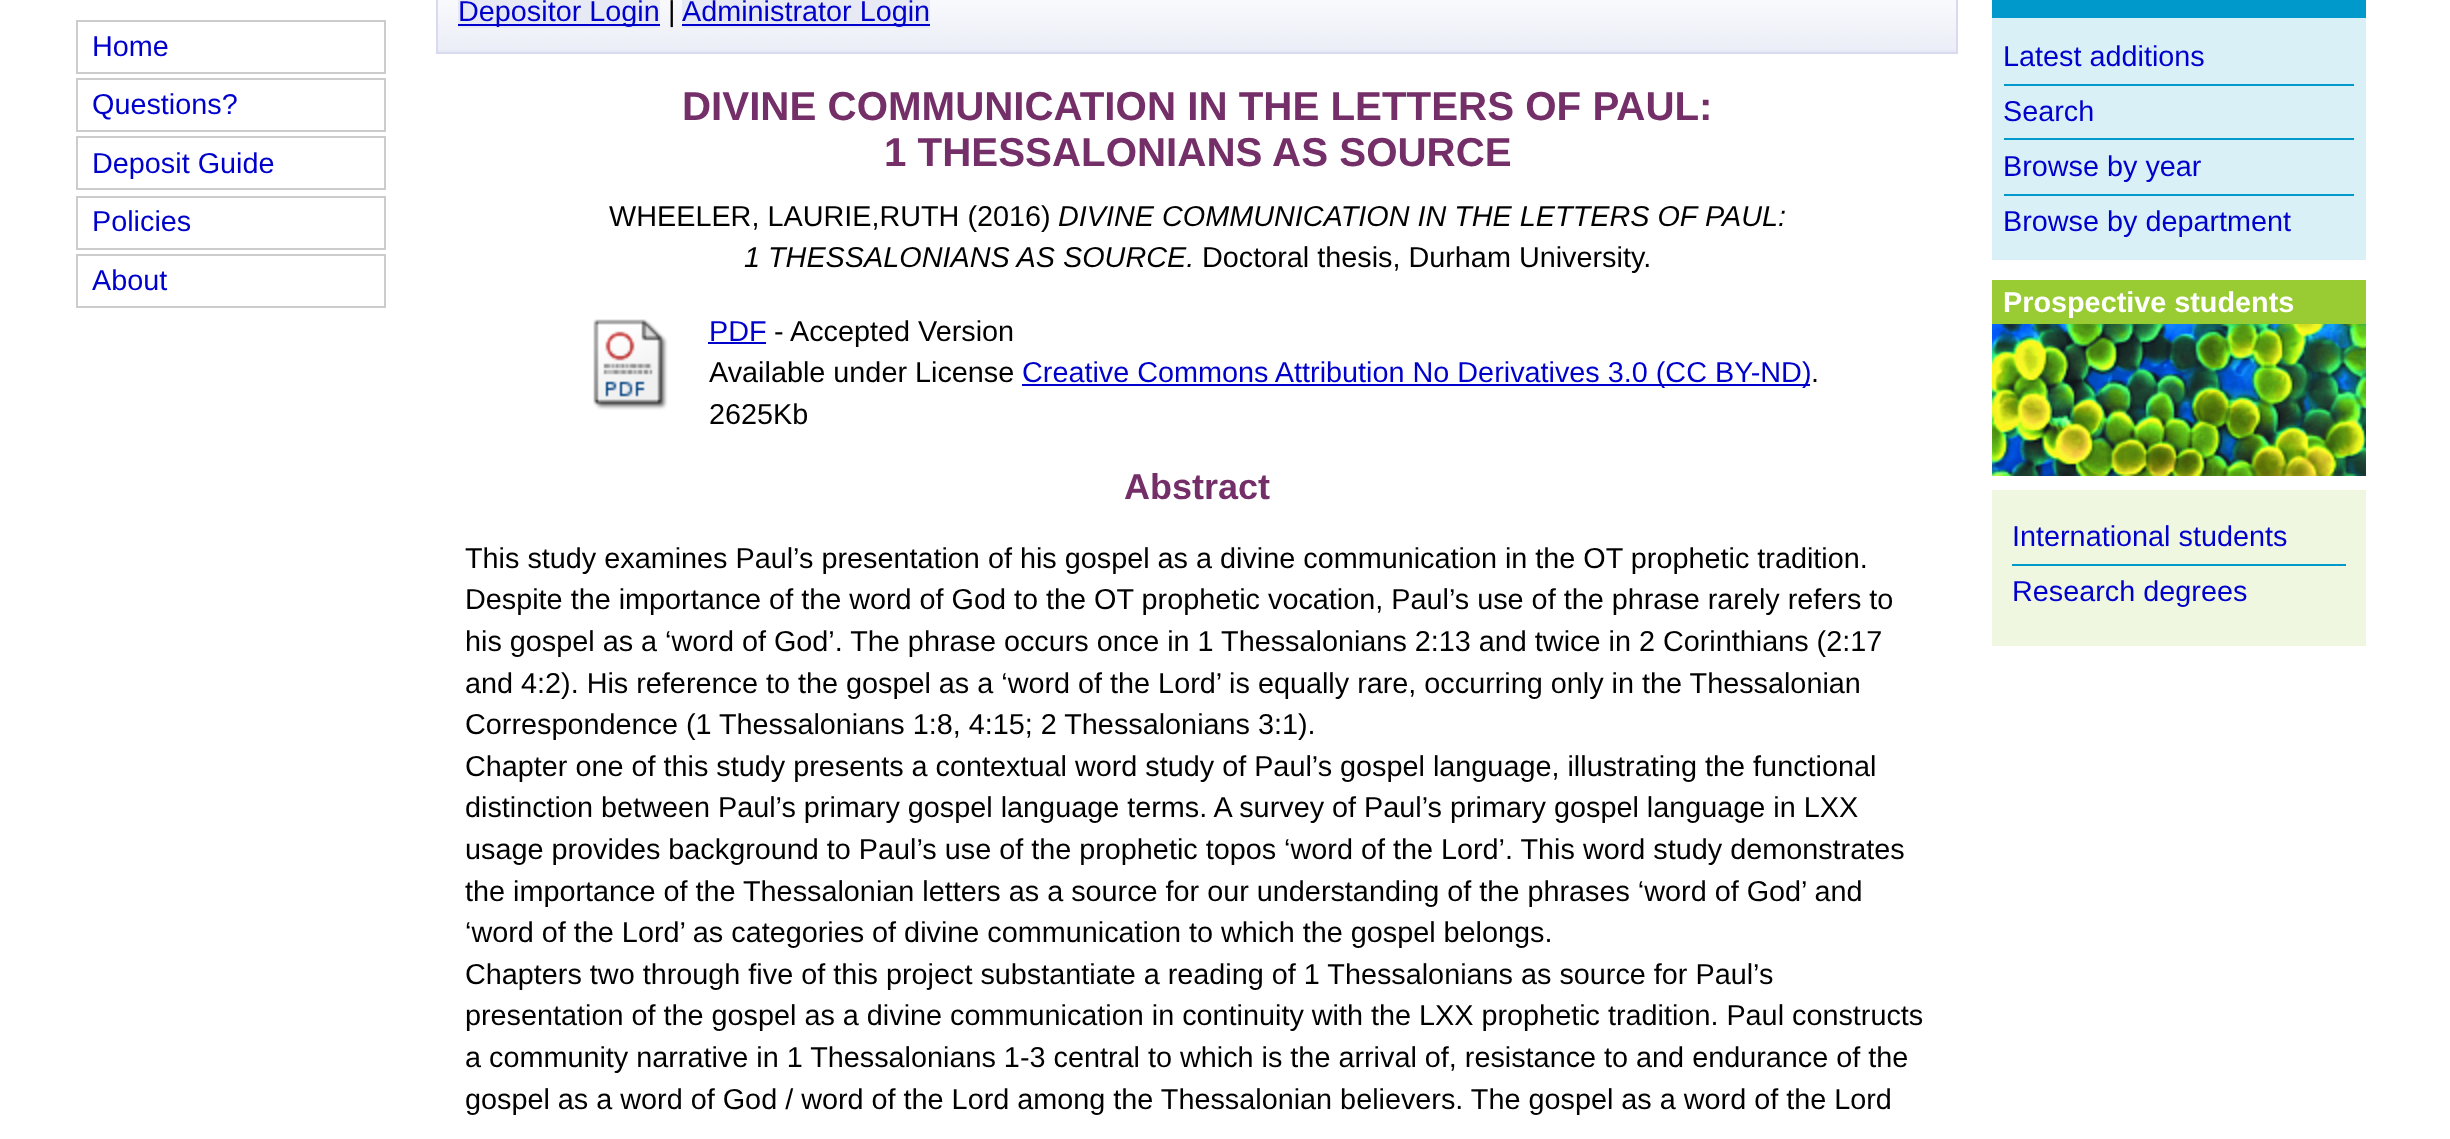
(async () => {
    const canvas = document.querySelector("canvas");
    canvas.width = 2450;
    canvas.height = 1139;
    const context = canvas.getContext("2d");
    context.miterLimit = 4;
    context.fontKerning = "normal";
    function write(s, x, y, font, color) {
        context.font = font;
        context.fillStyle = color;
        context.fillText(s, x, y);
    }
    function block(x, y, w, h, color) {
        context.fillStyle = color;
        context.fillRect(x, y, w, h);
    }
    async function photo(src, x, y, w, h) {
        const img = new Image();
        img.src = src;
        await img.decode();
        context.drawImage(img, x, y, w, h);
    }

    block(0, 0, 2450, 1139, "rgb(255, 255, 255)");
    context.strokeStyle = "rgb(204, 204, 204)";
    context.lineWidth = 2;
    context.strokeRect(77, 21, 308, 52);
    write("Home", 92, 56, "28.8px Liberation Sans", "rgb(0, 0, 204)");
    context.strokeRect(77, 79, 308, 52);
    write("Questions?", 92, 114, "28.8px Liberation Sans", "rgb(0, 0, 204)");
    context.strokeRect(77, 137, 308, 52);
    write("Deposit Guide", 92, 173, "28.8px Liberation Sans", "rgb(0, 0, 204)");
    context.strokeRect(77, 197, 308, 52);
    write("Policies", 92, 231, "28.8px Liberation Sans", "rgb(0, 0, 204)");
    context.strokeRect(77, 255, 308, 52);
    write("About", 92, 290, "28.8px Liberation Sans", "rgb(0, 0, 204)");
    block(438, 50, 1518, 2, "rgb(231, 233, 245)");
    await photo("media/1.png", 438, 0, 1518, 50);
    context.strokeStyle = "rgb(216, 219, 239)";
    context.strokeRect(437, -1, 1520, 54);
    block(458, 0, 202, 28, "rgb(231, 233, 245)");
    block(458, 24, 202, 2, "rgb(0, 0, 204)");
    write("Depositor Login", 458, 21, "28.8px Liberation Sans", "rgb(0, 0, 204)");
    write("|", 668, 21, "28.8px Liberation Sans", "rgb(0, 0, 0)");
    block(682, 0, 248, 28, "rgb(231, 233, 245)");
    block(682, 24, 248, 2, "rgb(0, 0, 204)");
    write("Administrator Login", 682, 21, "28.8px Liberation Sans", "rgb(0, 0, 204)");
    write("DIVINE COMMUNICATION IN THE LETTERS OF PAUL:", 682, 120, "bold 40.3px Liberation Sans", "rgb(116, 46, 104)");
    write("1 THESSALONIANS AS SOURCE", 884, 166, "bold 40.3px Liberation Sans", "rgb(116, 46, 104)");
    write("WHEELER, LAURIE,RUTH (2016)", 609, 226, "28.8px Liberation Sans", "rgb(0, 0, 0)");
    write("DIVINE COMMUNICATION IN THE LETTERS OF PAUL:", 1058, 226, "italic 28.8px Liberation Sans", "rgb(0, 0, 0)");
    write("1 THESSALONIANS AS SOURCE.", 744, 267, "italic 28.8px Liberation Sans", "rgb(0, 0, 0)");
    write("Doctoral thesis, Durham University.", 1202, 267, "28.8px Liberation Sans", "rgb(0, 0, 0)");
    await photo("media/2.png", 593, 319, 75, 91);
    write("PDF", 709, 341, "28.8px Liberation Sans", "rgb(0, 0, 204)");
    block(708, 342, 58, 2, "rgb(0, 0, 204)");
    write("- Accepted Version", 774, 341, "28.8px Liberation Sans", "rgb(0, 0, 0)");
    write("Available under License", 709, 382, "28.8px Liberation Sans", "rgb(0, 0, 0)");
    block(1022, 384, 788, 2, "rgb(0, 0, 204)");
    write("Creative Commons Attribution No Derivatives 3.0 (CC BY-ND)", 1022, 382, "28.8px Liberation Sans", "rgb(0, 0, 204)");
    write(".", 1811, 382, "28.8px Liberation Sans", "rgb(0, 0, 0)");
    write("2625Kb", 709, 424, "28.8px Liberation Sans", "rgb(0, 0, 0)");
    write("Abstract", 1124, 499, "bold 36px Liberation Sans", "rgb(116, 46, 104)");
    write("This study examines Paul’s presentation of his gospel as a divine communication in the OT prophetic tradition.", 465, 568, "28.8px Liberation Sans", "rgb(0, 0, 0)");
    write("Despite the importance of the word of God to the OT prophetic vocation, Paul’s use of the phrase rarely refers to", 465, 609, "28.8px Liberation Sans", "rgb(0, 0, 0)");
    write("his gospel as a ‘word of God’. The phrase occurs once in 1 Thessalonians 2:13 and twice in 2 Corinthians (2:17", 465, 651, "28.8px Liberation Sans", "rgb(0, 0, 0)");
    write("and 4:2). His reference to the gospel as a ‘word of the Lord’ is equally rare, occurring only in the Thessalonian", 465, 693, "28.8px Liberation Sans", "rgb(0, 0, 0)");
    write("Correspondence (1 Thessalonians 1:8, 4:15; 2 Thessalonians 3:1).", 465, 734, "28.8px Liberation Sans", "rgb(0, 0, 0)");
    write("Chapter one of this study presents a contextual word study of Paul’s gospel language, illustrating the functional", 465, 776, "28.8px Liberation Sans", "rgb(0, 0, 0)");
    write("distinction between Paul’s primary gospel language terms. A survey of Paul’s primary gospel language in LXX", 465, 817, "28.8px Liberation Sans", "rgb(0, 0, 0)");
    write("usage provides background to Paul’s use of the prophetic topos ‘word of the Lord’. This word study demonstrates", 465, 859, "28.8px Liberation Sans", "rgb(0, 0, 0)");
    write("the importance of the Thessalonian letters as a source for our understanding of the phrases ‘word of God’ and", 465, 901, "28.8px Liberation Sans", "rgb(0, 0, 0)");
    write("‘word of the Lord’ as categories of divine communication to which the gospel belongs.", 465, 942, "28.8px Liberation Sans", "rgb(0, 0, 0)");
    write("Chapters two through five of this project substantiate a reading of 1 Thessalonians as source for Paul’s", 465, 984, "28.8px Liberation Sans", "rgb(0, 0, 0)");
    write("presentation of the gospel as a divine communication in continuity with the LXX prophetic tradition. Paul constructs", 465, 1025, "28.8px Liberation Sans", "rgb(0, 0, 0)");
    write("a community narrative in 1 Thessalonians 1-3 central to which is the arrival of, resistance to and endurance of the", 465, 1067, "28.8px Liberation Sans", "rgb(0, 0, 0)");
    write("gospel as a word of God / word of the Lord among the Thessalonian believers. The gospel as a word of the Lord", 465, 1109, "28.8px Liberation Sans", "rgb(0, 0, 0)");
    block(1992, 18, 374, 242, "rgb(217, 240, 247)");
    block(1992, 0, 374, 18, "rgb(0, 153, 204)");
    write("Latest additions", 2003, 66, "28.8px Liberation Sans", "rgb(0, 0, 204)");
    block(2004, 84, 350, 2, "rgb(0, 153, 204)");
    write("Search", 2003, 121, "28.8px Liberation Sans", "rgb(0, 0, 204)");
    block(2004, 138, 350, 2, "rgb(0, 153, 204)");
    write("Browse by year", 2003, 176, "28.8px Liberation Sans", "rgb(0, 0, 204)");
    block(2004, 194, 350, 2, "rgb(0, 153, 204)");
    write("Browse by department", 2003, 231, "28.8px Liberation Sans", "rgb(0, 0, 204)");
    block(1992, 490, 374, 156, "rgb(240, 247, 225)");
    block(1992, 280, 374, 44, "rgb(153, 204, 51)");
    write("Prospective students", 2003, 312, "bold 28.8px Liberation Sans", "rgb(255, 255, 255)");
    await photo("media/3.png", 1992, 324, 125, 152);
    await photo("media/4.png", 2117, 324, 249, 152);
    write("International students", 2012, 546, "28.8px Liberation Sans", "rgb(0, 0, 204)");
    block(2012, 564, 334, 2, "rgb(0, 153, 204)");
    write("Research degrees", 2012, 601, "28.8px Liberation Sans", "rgb(0, 0, 204)");
})();
